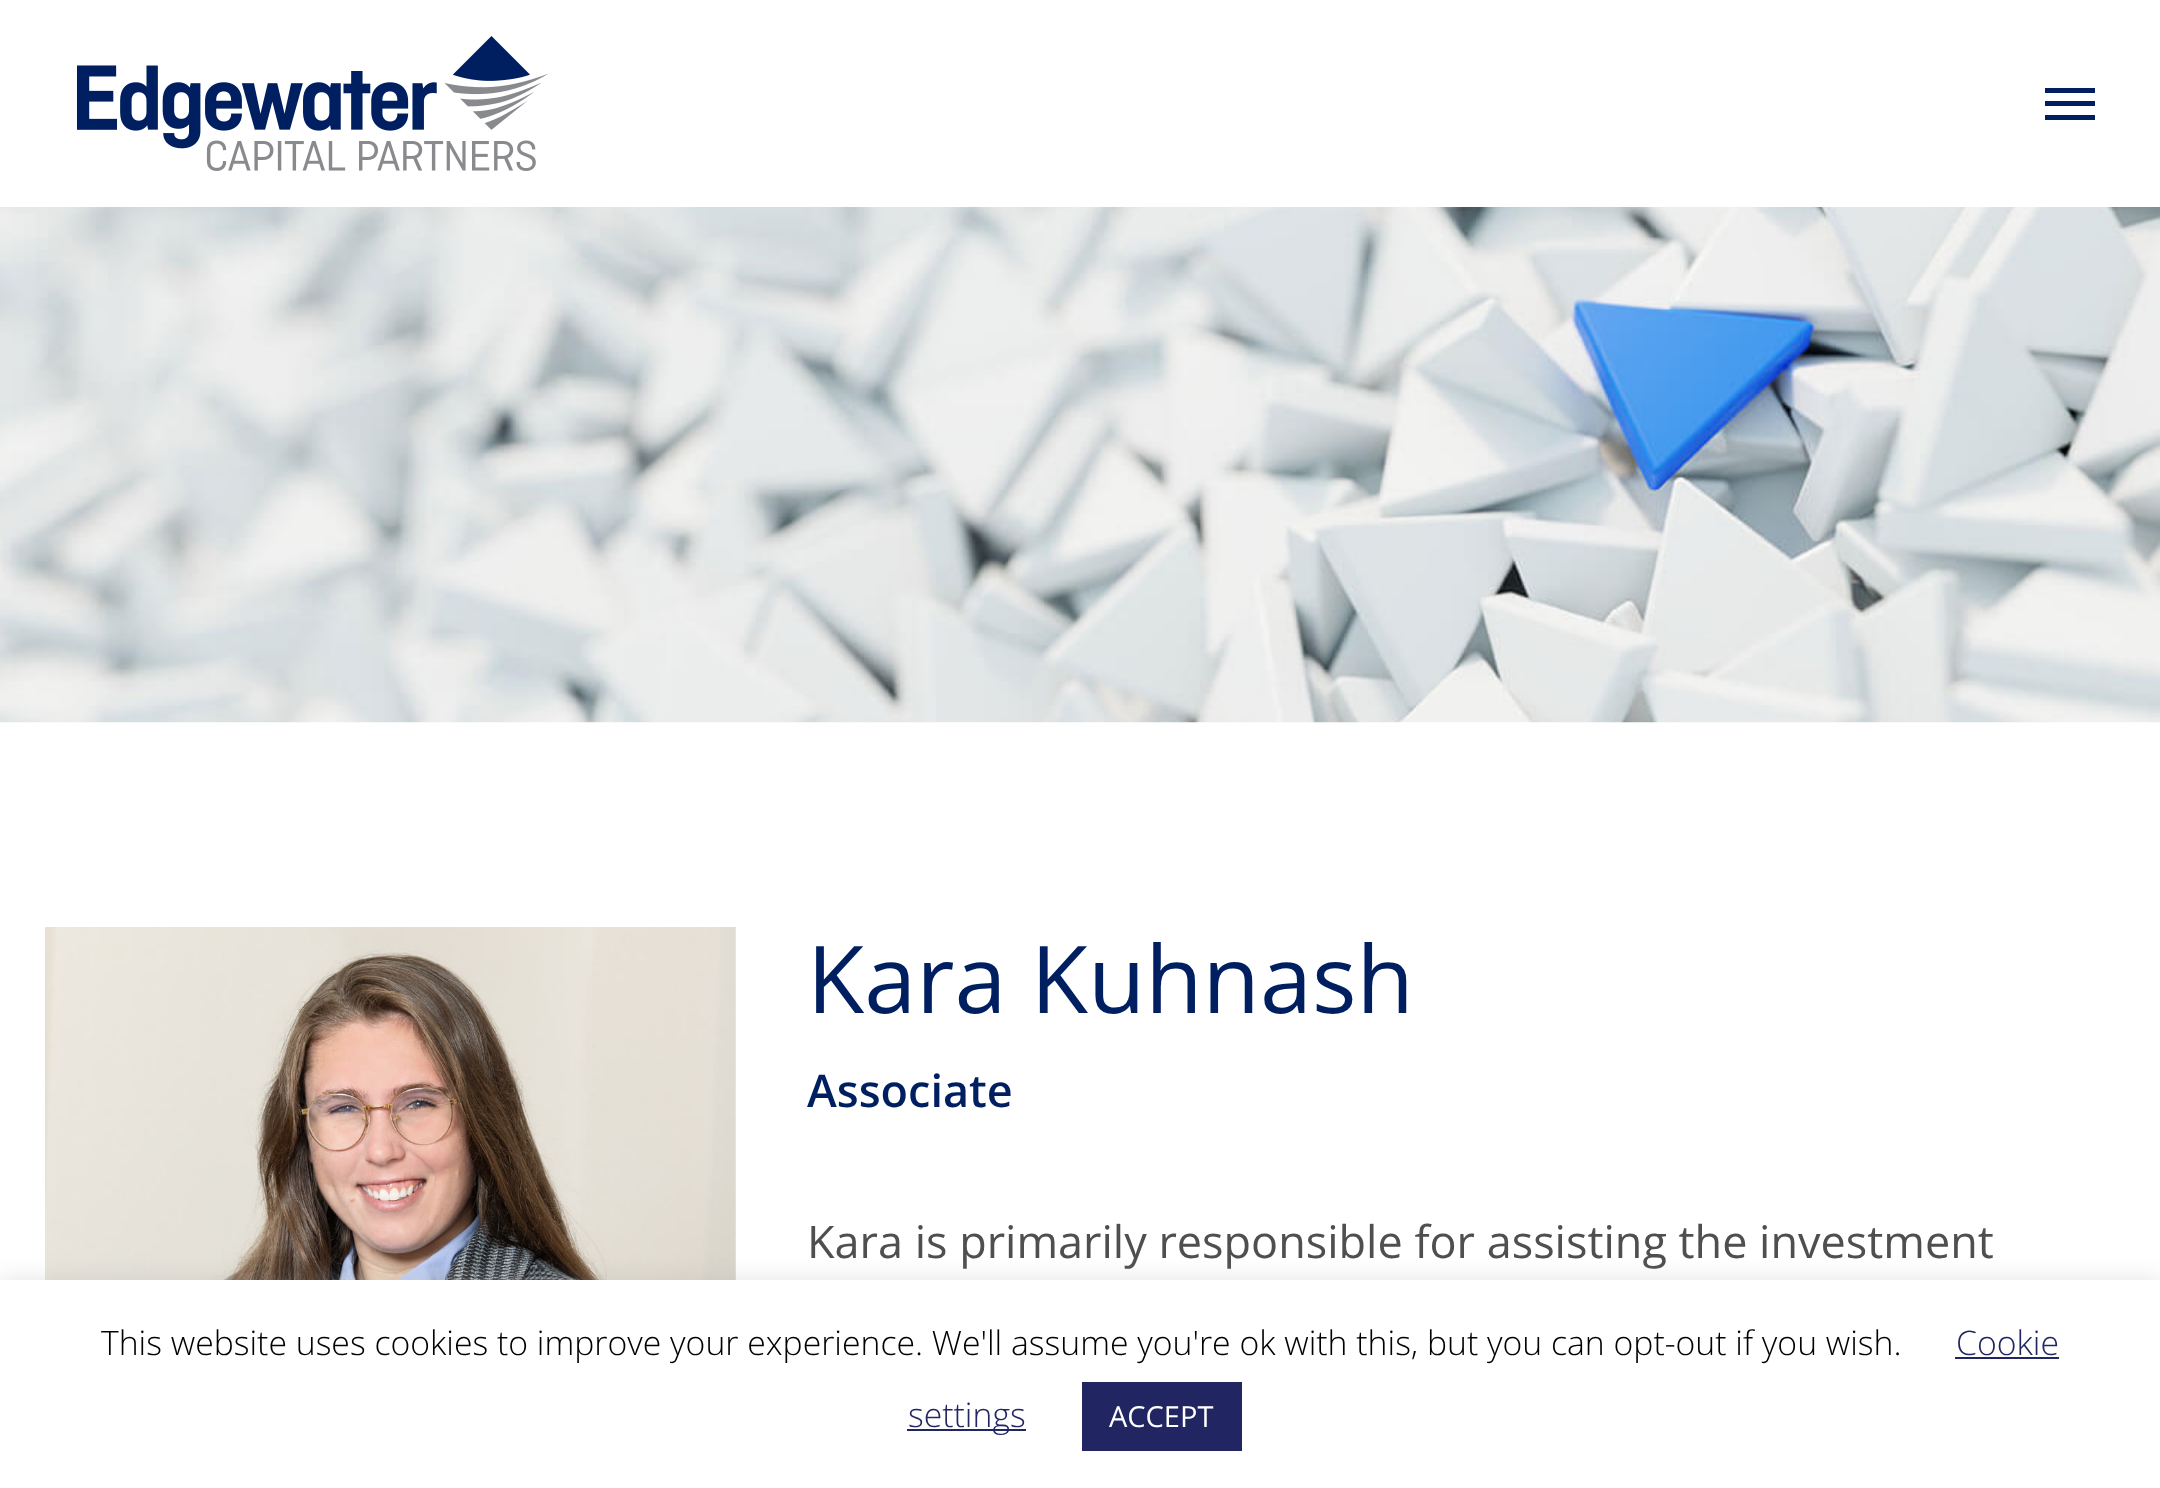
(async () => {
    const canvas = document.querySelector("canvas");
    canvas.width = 2160;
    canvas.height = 1488;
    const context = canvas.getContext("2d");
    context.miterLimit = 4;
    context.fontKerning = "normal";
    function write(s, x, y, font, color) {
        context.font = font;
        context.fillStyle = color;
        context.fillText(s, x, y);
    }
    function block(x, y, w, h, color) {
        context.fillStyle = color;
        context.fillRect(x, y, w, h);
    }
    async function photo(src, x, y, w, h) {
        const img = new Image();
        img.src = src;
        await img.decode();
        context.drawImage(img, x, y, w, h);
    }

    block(0, 0, 2160, 1488, "rgb(255, 255, 255)");
    await photo("media/1.png", 77, 36, 471, 135);
    block(2045, 88, 50, 5, "rgb(0, 31, 96)");
    block(2045, 101, 50, 5, "rgb(0, 31, 96)");
    block(2045, 115, 50, 5, "rgb(0, 31, 96)");
    await photo("media/2.png", 0, 207, 2160, 516);
    await photo("media/3.png", 45, 927, 691, 353);
    write("Kara Kuhnash", 807, 1013, "93.5px Open Sans", "rgb(0, 31, 96)");
    write("Associate", 807, 1107, "600 45px Open Sans", "rgb(0, 31, 96)");
    write("Kara is primarily responsible for assisting the investment", 807, 1258, "45px Open Sans", "rgb(79, 79, 79)");
    context.fillStyle = "rgba(172, 171, 171, 0.3)";
    context.filter = "blur(11px)";
    context.beginPath();
    context.rect(0, 1278, 2160, 209);
    context.fill();
    context.filter = "none";
    block(0, 1280, 2160, 208, "rgb(255, 255, 255)");
    write("This website uses cookies to improve your experience. We'll assume you're ok with this, but you can opt-out if you wish.", 101, 1355, "300 33.75px Open Sans", "rgb(0, 0, 0)");
    write("Cookie", 1956, 1355, "300 33.75px Open Sans", "rgb(33, 37, 98)");
    block(1955, 1357, 104, 2, "rgb(33, 37, 98)");
    block(907, 1429, 119, 2, "rgb(33, 37, 98)");
    write("settings", 908, 1427, "300 33.75px Open Sans", "rgb(33, 37, 98)");
    block(1082, 1382, 160, 69, "rgb(33, 37, 98)");
    write("ACCEPT", 1109, 1427, "29px Open Sans", "rgb(255, 255, 255)");
})();
